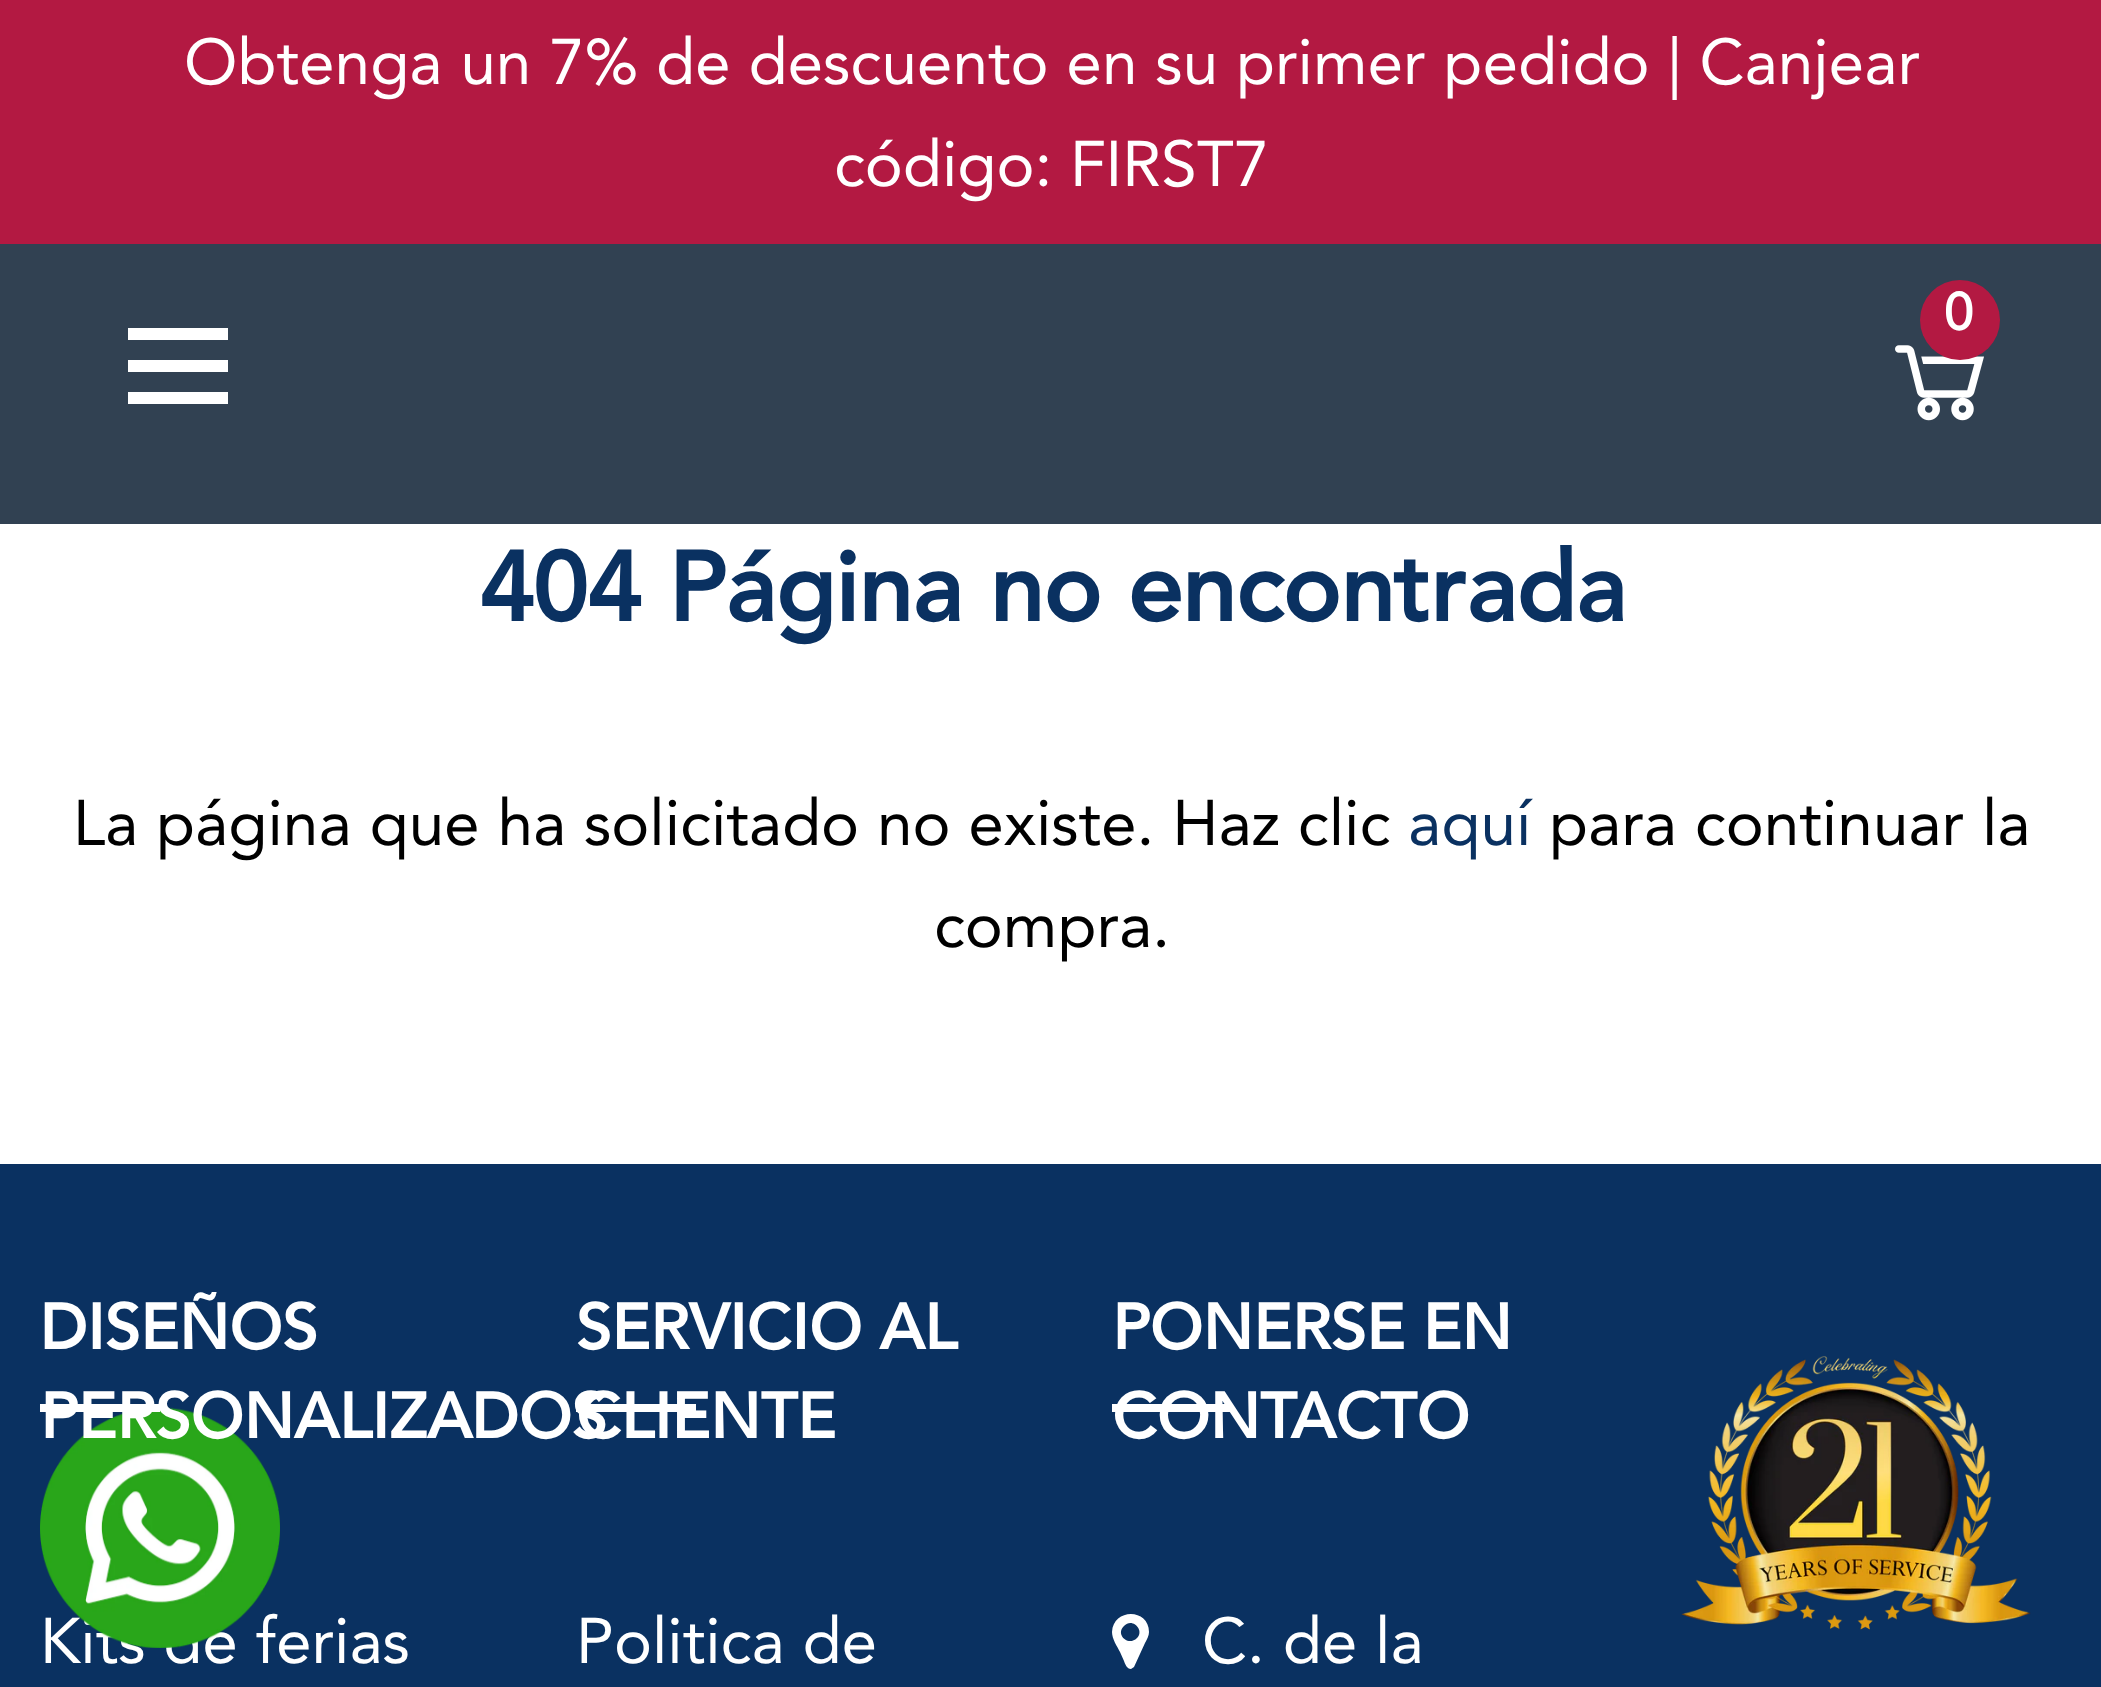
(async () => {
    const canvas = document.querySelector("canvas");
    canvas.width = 2101;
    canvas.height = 1687;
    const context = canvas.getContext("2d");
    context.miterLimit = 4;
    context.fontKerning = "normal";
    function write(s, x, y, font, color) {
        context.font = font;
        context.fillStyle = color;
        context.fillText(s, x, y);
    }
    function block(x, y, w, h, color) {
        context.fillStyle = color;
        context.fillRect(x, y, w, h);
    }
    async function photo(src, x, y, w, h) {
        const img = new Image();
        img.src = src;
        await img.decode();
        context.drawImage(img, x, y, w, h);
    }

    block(0, 0, 2101, 1687, "rgb(255, 255, 255)");
    block(0, 0, 2101, 244, "rgb(179, 25, 66)");
    write("Obtenga un 7% de descuento en su primer pedido | Canjear", 184, 84, "64px Avenir", "rgb(255, 255, 255)");
    write("código: FIRST7", 834, 186, "64px Avenir", "rgb(255, 255, 255)");
    block(0, 244, 2101, 280, "rgb(49, 65, 82)");
    await photo("media/1.png", 1895, 345, 89, 76);
    context.fillStyle = "rgb(179, 25, 66)";
    context.beginPath();
    context.arc(1960, 320, 40, 0, Math.PI * 2);
    context.fill();
    write("0", 1944, 330, "bold 52px Avenir", "rgb(255, 255, 255)");
    block(128, 360, 100, 12, "rgb(255, 255, 255)");
    block(128, 328, 100, 12, "rgb(255, 255, 255)");
    block(128, 392, 100, 12, "rgb(255, 255, 255)");
    write("404 Página no encontrada", 479, 621, "bold 97px 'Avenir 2'", "rgb(10, 49, 97)");
    write("La página que ha solicitado no existe. Haz clic", 73, 845, "64px Avenir", "rgb(0, 0, 0)");
    write("aquí", 1408, 845, "64px Avenir", "rgb(10, 49, 97)");
    write("para continuar la", 1549, 845, "64px Avenir", "rgb(0, 0, 0)");
    write("compra.", 934, 947, "64px Avenir", "rgb(0, 0, 0)");
    block(0, 1164, 2101, 523, "rgb(10, 49, 97)");
    write("DISEÑOS", 40, 1349, "bold 63.5px 'Avenir 2'", "rgb(255, 255, 255)");
    write("Kits de ferias", 40, 1663, "64px Avenir", "rgb(255, 255, 255)");
    await photo("media/3.png", 40, 1407, 240, 241);
    write("PERSONALIZADOS", 40, 1438, "bold 63.5px 'Avenir 2'", "rgb(255, 255, 255)");
    block(40, 1404, 120, 8, "rgb(255, 255, 255)");
    write("SERVICIO AL", 576, 1349, "bold 63.5px 'Avenir 2'", "rgb(255, 255, 255)");
    write("CLIENTE", 576, 1438, "bold 63.5px 'Avenir 2'", "rgb(255, 255, 255)");
    block(576, 1404, 120, 8, "rgb(255, 255, 255)");
    write("Politica de", 576, 1663, "64px Avenir", "rgb(255, 255, 255)");
    write("PONERSE EN", 1112, 1349, "bold 63.5px 'Avenir 2'", "rgb(255, 255, 255)");
    write("CONTACTO", 1112, 1438, "bold 63.5px 'Avenir 2'", "rgb(255, 255, 255)");
    block(1112, 1404, 120, 8, "rgb(255, 255, 255)");
    context.beginPath();
    context.moveTo(1137, 1638);
    context.bezierCurveTo(1145, 1630, 1132, 1617, 1124, 1626);
    context.bezierCurveTo(1115, 1634, 1128, 1647, 1137, 1638);
    context.closePath();
    context.moveTo(1149, 1632);
    context.bezierCurveTo(1149, 1636, 1147, 1639, 1145, 1643);
    context.lineTo(1134, 1667);
    context.lineTo(1131, 1669);
    context.bezierCurveTo(1127, 1669, 1125, 1664, 1124, 1661);
    context.lineTo(1120, 1652);
    context.bezierCurveTo(1117, 1646, 1112, 1639, 1112, 1632);
    context.bezierCurveTo(1113, 1608, 1149, 1608, 1149, 1632);
    context.closePath();
    context.fill();
    write("C. de la", 1202, 1663, "64px Avenir", "rgb(255, 255, 255)");
    await photo("media/2.png", 1681, 1356, 350, 274);
})();
